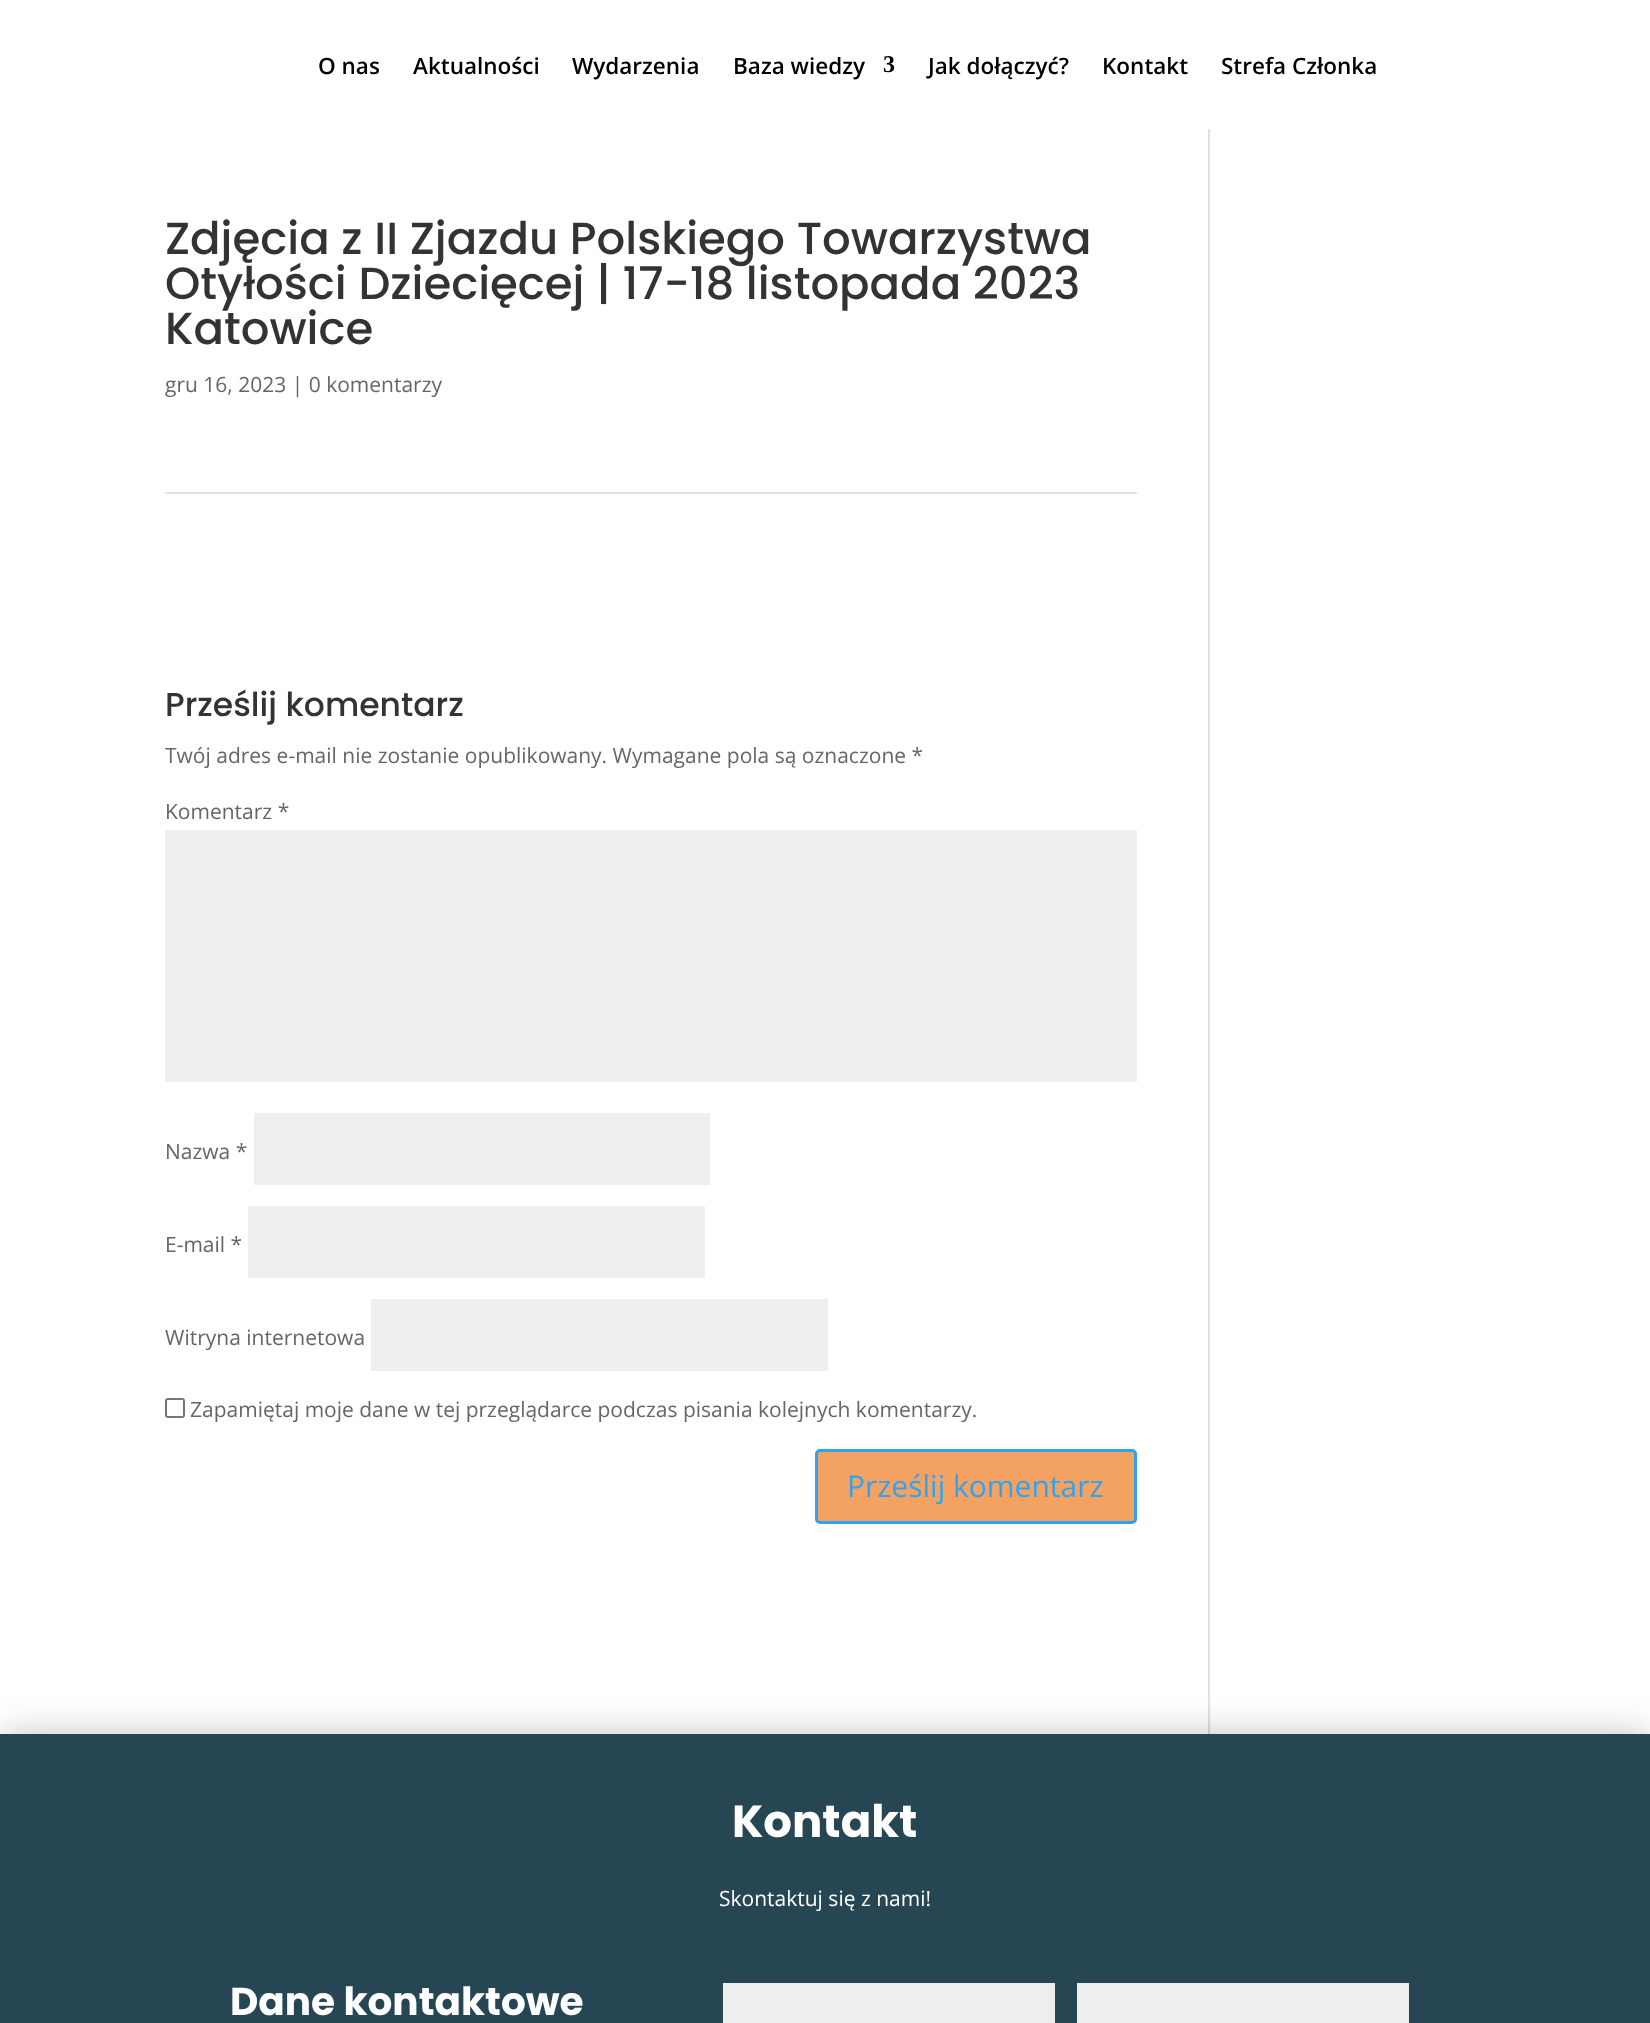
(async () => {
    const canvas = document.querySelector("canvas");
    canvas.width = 1650;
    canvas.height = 2023;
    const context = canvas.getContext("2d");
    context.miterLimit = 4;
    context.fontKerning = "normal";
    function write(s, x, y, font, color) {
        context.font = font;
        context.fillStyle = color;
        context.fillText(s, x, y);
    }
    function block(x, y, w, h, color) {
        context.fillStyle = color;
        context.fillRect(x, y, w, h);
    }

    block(0, 0, 1650, 2023, "rgb(255, 255, 255)");
    write("O nas", 318, 74, "600 22.5px Open Sans", "rgb(0, 0, 0)");
    write("Aktualności", 413, 74, "600 22.5px Open Sans", "rgb(0, 0, 0)");
    write("Wydarzenia", 572, 74, "600 22.5px Open Sans", "rgb(0, 0, 0)");
    write("Baza wiedzy", 733, 74, "600 22.5px Open Sans", "rgb(0, 0, 0)");
    write("3", 883, 72, "bold 24px Liberation Serif", "rgb(0, 0, 0)");
    write("Jak dołączyć?", 928, 74, "600 22.5px Open Sans", "rgb(0, 0, 0)");
    write("Kontakt", 1102, 74, "600 22.5px Open Sans", "rgb(0, 0, 0)");
    write("Strefa Członka", 1221, 74, "600 22.5px Open Sans", "rgb(0, 0, 0)");
    write("Zdjęcia z II Zjazdu Polskiego Towarzystwa", 165, 254, "500 45px Poppins", "rgb(51, 51, 51)");
    write("Otyłości Dziecięcej | 17-18 listopada 2023", 165, 299, "500 45px Poppins", "rgb(51, 51, 51)");
    write("Katowice", 165, 344, "500 45px Poppins", "rgb(51, 51, 51)");
    write("gru 16, 2023 | 0 komentarzy", 165, 392, "21px Open Sans", "rgb(102, 102, 102)");
    block(165, 492, 972, 2, "rgb(226, 226, 226)");
    write("Prześlij komentarz", 165, 716, "500 33px Poppins", "rgb(51, 51, 51)");
    write("Twój adres e-mail nie zostanie opublikowany. Wymagane pola są oznaczone *", 165, 763, "21px Open Sans", "rgb(102, 102, 102)");
    write("Komentarz *", 165, 819, "21px Open Sans", "rgb(102, 102, 102)");
    block(165, 830, 972, 252, "rgb(238, 238, 238)");
    write("Nazwa *", 165, 1159, "21px Open Sans", "rgb(102, 102, 102)");
    block(254, 1113, 456, 72, "rgb(238, 238, 238)");
    write("E-mail *", 165, 1252, "21px Open Sans", "rgb(102, 102, 102)");
    block(248, 1206, 457, 72, "rgb(238, 238, 238)");
    write("Witryna internetowa", 165, 1345, "21px Open Sans", "rgb(102, 102, 102)");
    block(371, 1299, 457, 72, "rgb(238, 238, 238)");
    context.beginPath();
    context.roundRect(166, 1399, 18, 18, 2);
    context.strokeStyle = "rgb(118, 118, 118)";
    context.lineWidth = 2;
    context.stroke();
    write("Zapamiętaj moje dane w tej przeglądarce podczas pisania kolejnych komentarzy.", 190, 1417, "21px Open Sans", "rgb(102, 102, 102)");
    context.fillStyle = "rgb(244, 162, 97)";
    context.beginPath();
    context.roundRect(816.5, 1450.5, 319, 72, 3.5);
    context.fill();
    context.strokeStyle = "rgb(46, 163, 242)";
    context.lineWidth = 3;
    context.stroke();
    write("Prześlij komentarz", 847, 1497, "30px Open Sans", "rgb(46, 163, 242)");
    block(1208, 129, 2, 1605, "rgb(226, 226, 226)");
    context.fillStyle = "rgba(0, 0, 0, 0.3)";
    context.filter = "blur(20px)";
    context.beginPath();
    context.rect(2, 1739, 1647, 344);
    context.fill();
    context.filter = "none";
    block(0, 1734, 1650, 289, "rgb(38, 70, 83)");
    write("Kontakt", 732, 1837, "bold 45px Poppins", "rgb(255, 255, 255)");
    write("Skontaktuj się z nami!", 719, 1906, "21px Open Sans", "rgb(255, 255, 255)");
    write("Dane kontaktowe", 230, 2015, "bold 39px Poppins", "rgb(255, 255, 255)");
    block(723, 1983, 332, 40, "rgb(238, 238, 238)");
    block(1077, 1983, 332, 40, "rgb(238, 238, 238)");
})();
